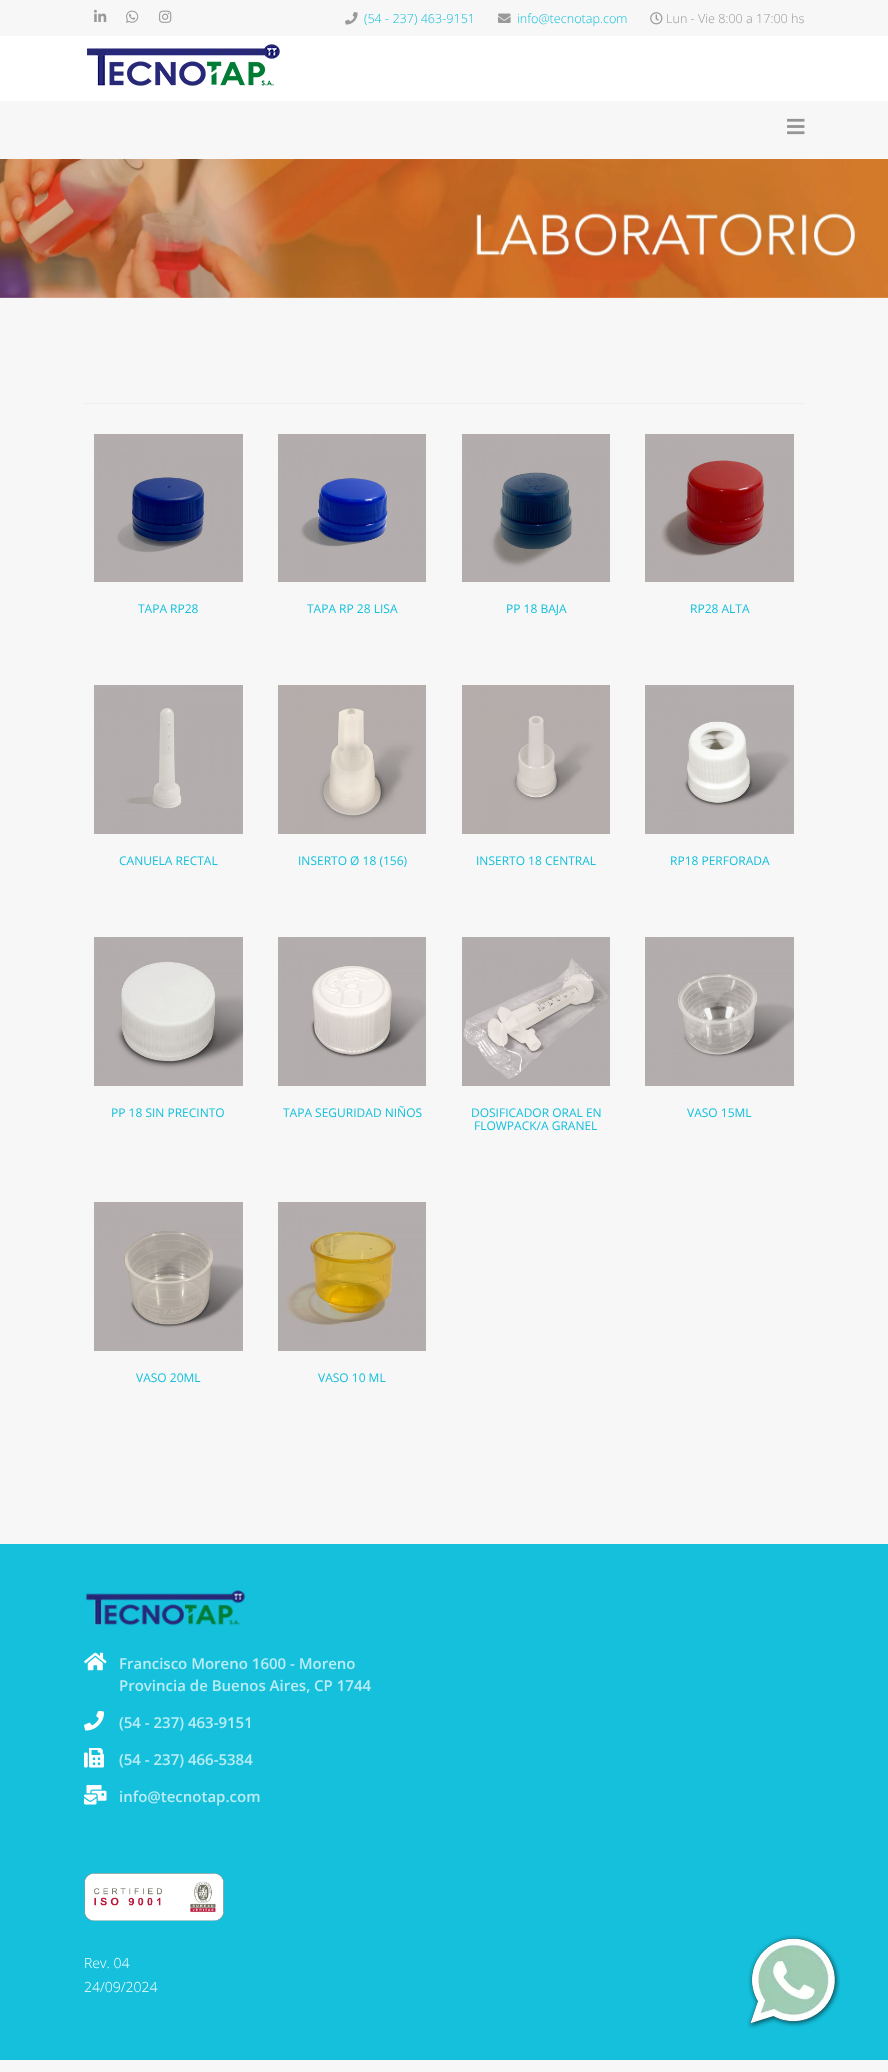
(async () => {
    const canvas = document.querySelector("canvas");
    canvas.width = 888;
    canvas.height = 2072;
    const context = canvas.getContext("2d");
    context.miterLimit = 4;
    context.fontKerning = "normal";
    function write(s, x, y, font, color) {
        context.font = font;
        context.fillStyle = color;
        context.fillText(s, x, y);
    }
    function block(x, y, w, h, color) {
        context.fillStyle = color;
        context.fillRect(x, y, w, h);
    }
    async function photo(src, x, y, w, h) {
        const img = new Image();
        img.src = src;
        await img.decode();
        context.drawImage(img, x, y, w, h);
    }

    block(0, 0, 888, 2072, "rgb(247, 247, 247)");
    await photo("media/1.png", 94, 9, 13, 13);
    await photo("media/2.png", 126, 10, 13, 13);
    await photo("media/3.png", 159, 10, 13, 13);
    await photo("media/4.png", 345, 12, 13, 13);
    write("(54 - 237) 463-9151", 364, 23, "300 12.6px Open Sans", "rgb(20, 192, 220)");
    await photo("media/5.png", 498, 13, 13, 10);
    write("info@tecnotap.com", 517, 23, "300 12.6px Open Sans", "rgb(20, 192, 220)");
    await photo("media/6.png", 650, 12, 13, 13);
    write("Lun - Vie 8:00 a 17:00 hs", 666, 23, "300 12.6px Open Sans", "rgb(153, 153, 153)");
    block(0, 36, 888, 65, "rgb(255, 255, 255)");
    await photo("media/7.png", 87, 44, 193, 42);
    await photo("media/8.png", 787, 118, 18, 17);
    await photo("media/9.png", 0, 159, 888, 139);
    block(84, 403, 720, 1, "rgb(238, 238, 238)");
    await photo("media/10.png", 94, 434, 149, 148);
    write("TAPA RP28", 138, 613, "12px Open Sans", "rgb(20, 192, 220)");
    await photo("media/11.png", 278, 434, 148, 148);
    write("TAPA RP 28 LISA", 307, 613, "12px Open Sans", "rgb(20, 192, 220)");
    await photo("media/12.png", 462, 434, 148, 148);
    write("PP 18 BAJA", 506, 613, "12px Open Sans", "rgb(20, 192, 220)");
    await photo("media/13.png", 645, 434, 149, 148);
    write("RP28 ALTA", 690, 613, "12px Open Sans", "rgb(20, 192, 220)");
    await photo("media/14.png", 94, 685, 149, 149);
    write("CANUELA RECTAL", 119, 865, "12px Open Sans", "rgb(20, 192, 220)");
    await photo("media/15.png", 278, 685, 148, 149);
    write("INSERTO Ø 18 (156)", 298, 865, "12px Open Sans", "rgb(20, 192, 220)");
    await photo("media/16.png", 462, 685, 148, 149);
    write("INSERTO 18 CENTRAL", 476, 865, "12px Open Sans", "rgb(20, 192, 220)");
    await photo("media/17.png", 645, 685, 149, 149);
    write("RP18 PERFORADA", 670, 865, "12px Open Sans", "rgb(20, 192, 220)");
    await photo("media/18.png", 94, 937, 149, 149);
    write("PP 18 SIN PRECINTO", 111, 1117, "12px Open Sans", "rgb(20, 192, 220)");
    await photo("media/19.png", 278, 937, 148, 149);
    write("TAPA SEGURIDAD NIÑOS", 283, 1117, "12px Open Sans", "rgb(20, 192, 220)");
    await photo("media/20.png", 462, 937, 148, 149);
    write("DOSIFICADOR ORAL EN", 471, 1117, "12px Open Sans", "rgb(20, 192, 220)");
    write("FLOWPACK/A GRANEL", 474, 1130, "12px Open Sans", "rgb(20, 192, 220)");
    await photo("media/21.png", 645, 937, 149, 149);
    write("VASO 15ML", 687, 1117, "12px Open Sans", "rgb(20, 192, 220)");
    await photo("media/22.png", 94, 1202, 149, 149);
    write("VASO 20ML", 136, 1382, "12px Open Sans", "rgb(20, 192, 220)");
    await photo("media/23.png", 278, 1202, 148, 149);
    write("VASO 10 ML", 318, 1382, "12px Open Sans", "rgb(20, 192, 220)");
    block(0, 1544, 888, 516, "rgb(20, 192, 220)");
    await photo("media/24.png", 86, 1590, 159, 36);
    await photo("media/25.png", 84, 1652, 23, 19);
    write("Francisco Moreno 1600 - Moreno", 119, 1669, "600 15px Open Sans", "rgb(185, 236, 245)");
    write("Provincia de Buenos Aires, CP 1744", 119, 1691, "600 15px Open Sans", "rgb(185, 236, 245)");
    await photo("media/26.png", 84, 1711, 20, 20);
    write("(54 - 237) 463-9151", 119, 1728, "600 15px Open Sans", "rgb(185, 236, 245)");
    await photo("media/27.png", 84, 1748, 20, 20);
    write("(54 - 237) 466-5384", 119, 1765, "600 15px Open Sans", "rgb(185, 236, 245)");
    await photo("media/28.png", 84, 1785, 23, 20);
    write("info@tecnotap.com", 119, 1802, "600 15px Open Sans", "rgb(185, 236, 245)");
    await photo("media/29.png", 84, 1873, 140, 48);
    write("Rev. 04", 84, 1968, "300 14px Open Sans", "rgb(255, 255, 255)");
    write("24/09/2024", 84, 1992, "300 14px Open Sans", "rgb(255, 255, 255)");
    await photo("media/30.png", 747, 1935, 93, 94);
})();
